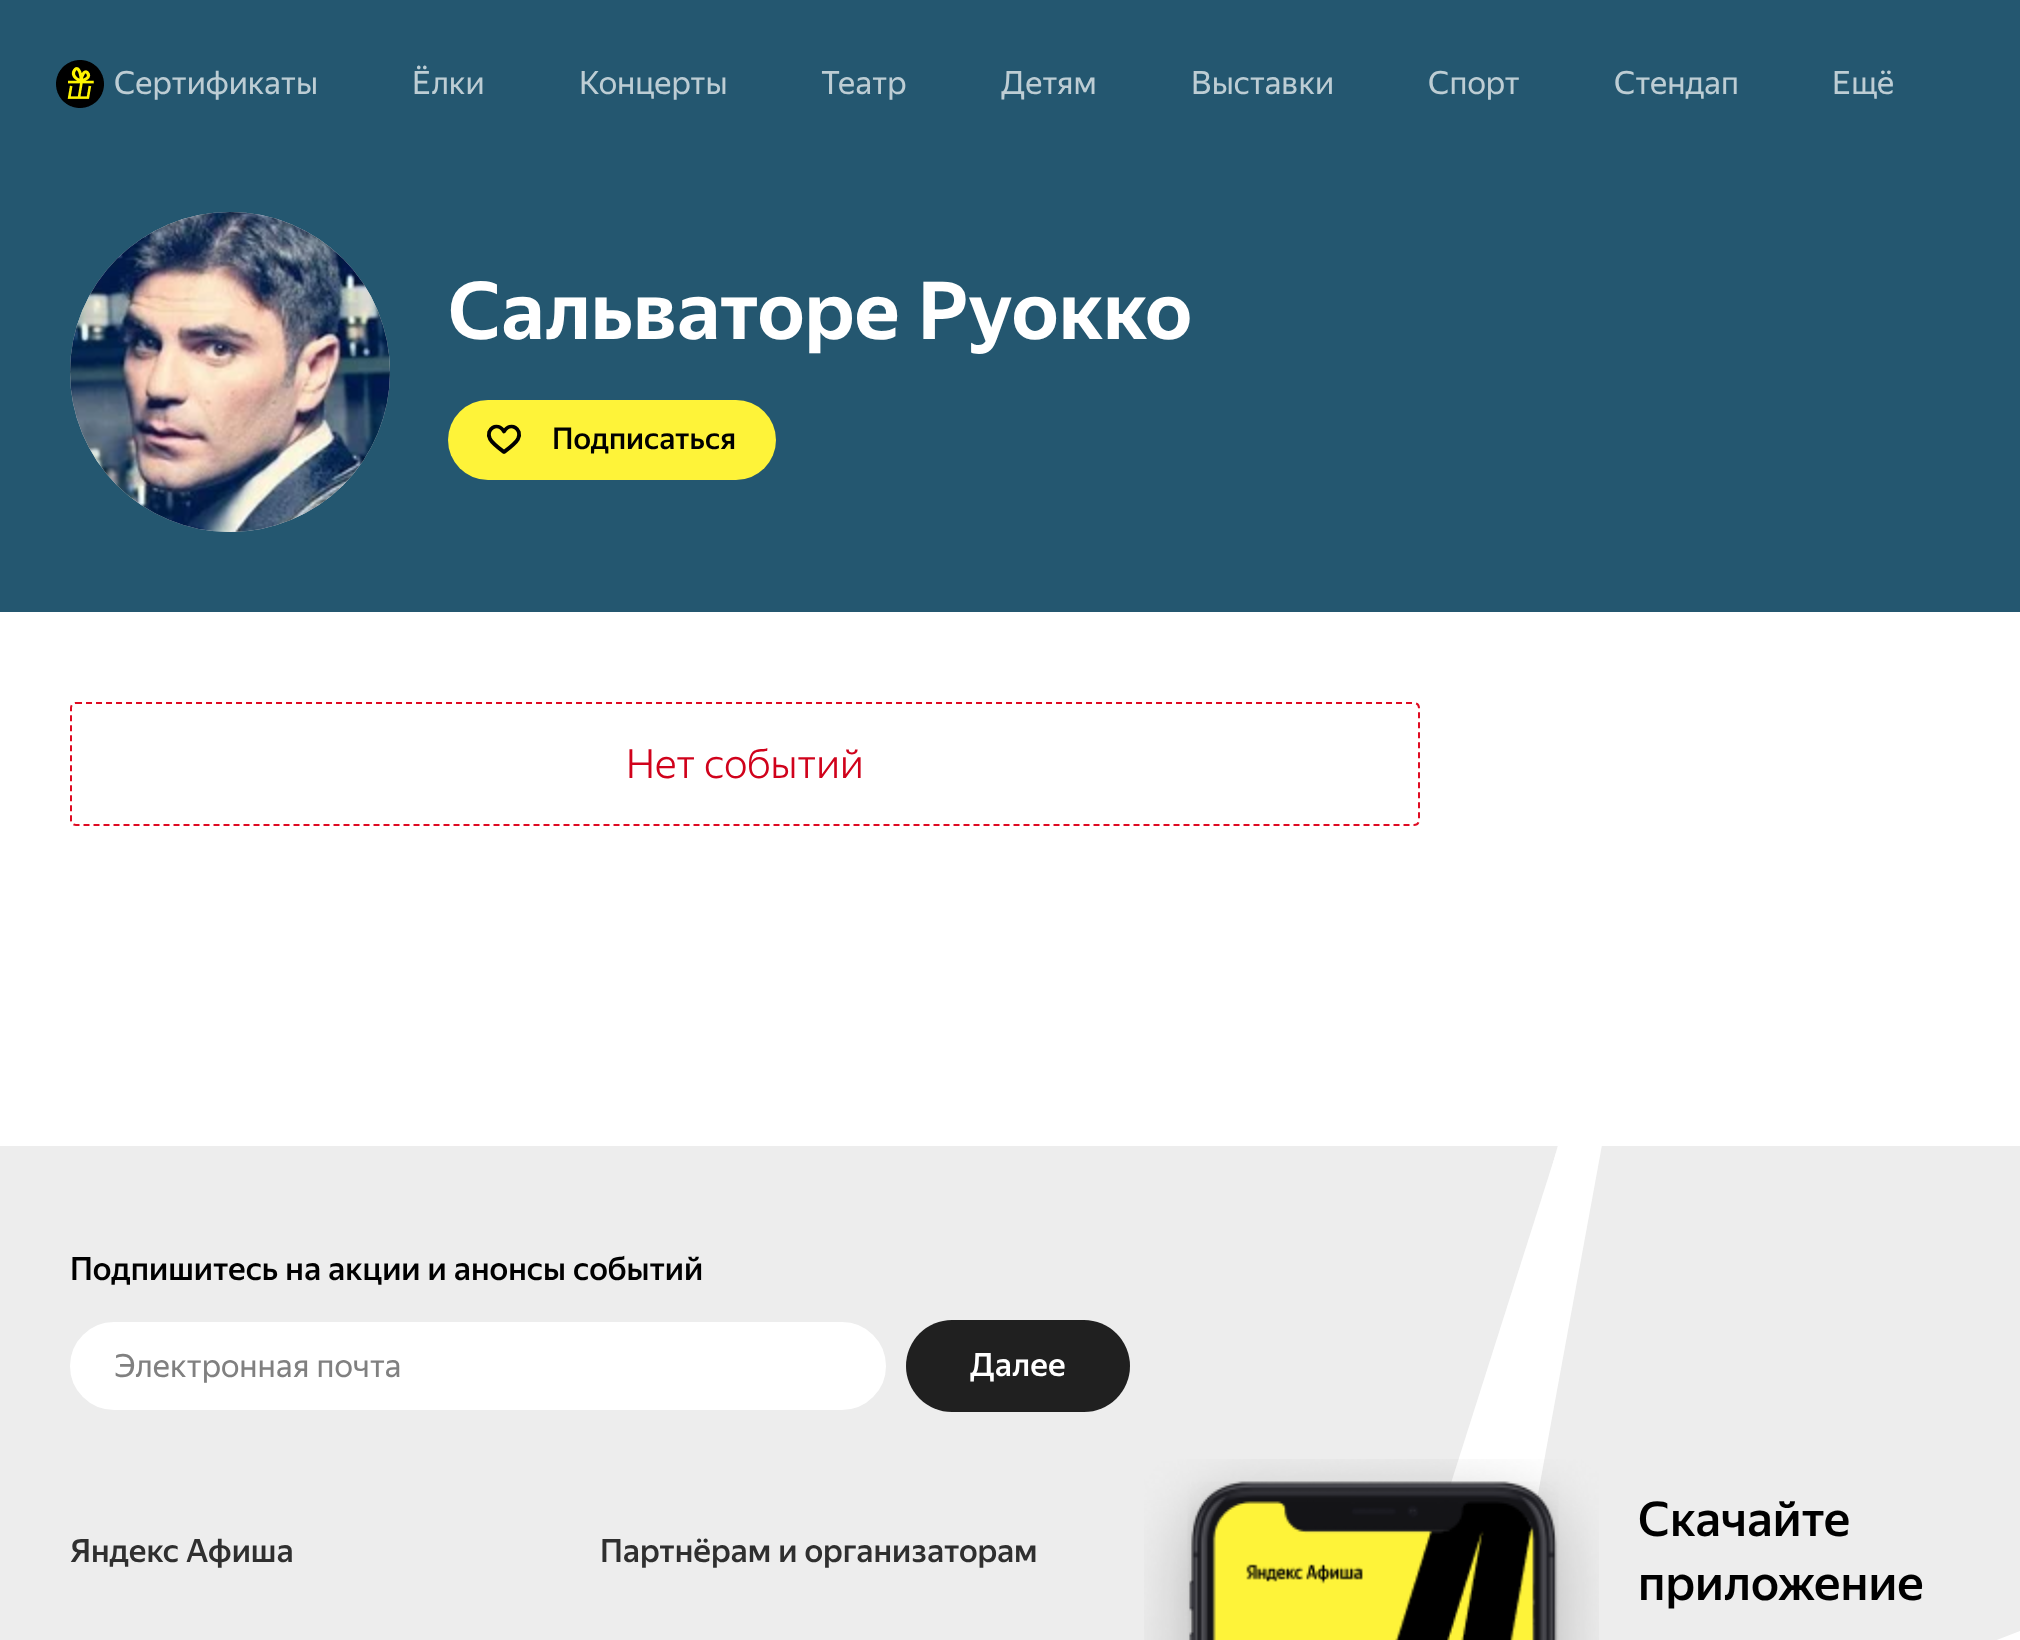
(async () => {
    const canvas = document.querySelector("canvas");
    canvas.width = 2020;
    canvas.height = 1640;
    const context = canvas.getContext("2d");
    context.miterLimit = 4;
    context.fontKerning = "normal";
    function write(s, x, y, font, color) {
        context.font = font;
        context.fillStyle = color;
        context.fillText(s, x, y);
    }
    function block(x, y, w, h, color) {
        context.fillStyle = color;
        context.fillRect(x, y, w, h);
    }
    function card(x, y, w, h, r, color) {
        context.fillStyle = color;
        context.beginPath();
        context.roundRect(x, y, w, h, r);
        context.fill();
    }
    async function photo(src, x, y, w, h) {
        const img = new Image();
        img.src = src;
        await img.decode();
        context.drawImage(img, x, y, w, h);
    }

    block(0, 0, 2020, 1640, "rgb(255, 255, 255)");
    block(0, 0, 2020, 612, "rgb(36, 87, 112)");
    await photo("media/1.png", 56, 60, 48, 48);
    write("Сертификаты", 114, 94, "32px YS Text", "rgb(189, 205, 212)");
    write("Ёлки", 412, 94, "32px YS Text", "rgb(189, 205, 212)");
    write("Концерты", 579, 94, "32px YS Text", "rgb(189, 205, 212)");
    write("Театр", 821, 94, "32px YS Text", "rgb(189, 205, 212)");
    write("Детям", 1001, 94, "32px YS Text", "rgb(189, 205, 212)");
    write("Выставки", 1191, 94, "32px YS Text", "rgb(189, 205, 212)");
    write("Спорт", 1428, 94, "32px YS Text", "rgb(189, 205, 212)");
    write("Стендап", 1614, 94, "32px YS Text", "rgb(189, 205, 212)");
    write("Ещё", 1832, 94, "32px YS Text", "rgb(189, 205, 212)");
    context.fillStyle = "rgb(216, 216, 216)";
    context.beginPath();
    context.arc(230, 372, 160, 0, Math.PI * 2);
    context.fill();
    await photo("media/2.png", 70, 212, 320, 320);
    write("Сальваторе Руокко", 448, 339, "bold 80px YS Text", "rgb(255, 255, 255)");
    card(448, 400, 328, 80, 40, "rgb(254, 243, 57)");
    context.beginPath();
    context.moveTo(504, 452);
    context.bezierCurveTo(500, 449, 492.5, 443.5, 490, 439);
    context.bezierCurveTo(485, 429, 497.5, 421, 504, 431.5);
    context.bezierCurveTo(510.5, 421, 523, 429, 518, 439);
    context.bezierCurveTo(515.5, 443.5, 508, 449, 504, 452);
    context.closePath();
    context.strokeStyle = "rgb(0, 0, 0)";
    context.lineWidth = 3.8;
    context.lineCap = "square";
    context.lineJoin = "round";
    context.stroke();
    write("Подписаться", 552, 449, "500 30px YS Text", "rgb(0, 0, 0)");
    context.beginPath();
    context.moveTo(76, 703);
    context.lineTo(1414, 703);
    context.bezierCurveTo(1417, 703, 1419, 705, 1419, 708);
    context.lineTo(1419, 820);
    context.bezierCurveTo(1419, 823, 1417, 825, 1414, 825);
    context.lineTo(76, 825);
    context.bezierCurveTo(73, 825, 71, 823, 71, 820);
    context.lineTo(71, 708);
    context.bezierCurveTo(71, 705, 73, 703, 76, 703);
    context.closePath();
    context.strokeStyle = "rgb(223, 11, 34)";
    context.lineWidth = 2;
    context.lineCap = "butt";
    context.lineJoin = "miter";
    context.setLineDash([6, 4]);
    context.stroke();
    write("Нет событий", 626, 778, "300 40px YS Text", "rgb(208, 2, 27)");
    block(0, 1146, 2020, 494, "rgb(237, 237, 237)");
    write("Подпишитесь на акции и анонсы событий", 70, 1280, "500 32px YS Text", "rgb(0, 0, 0)");
    context.fillStyle = "rgb(255, 255, 255)";
    context.beginPath();
    context.roundRect(72, 1324, 812, 84, 42);
    context.fill();
    context.strokeStyle = "rgb(255, 255, 255)";
    context.lineWidth = 4;
    context.setLineDash([]);
    context.stroke();
    write("Электронная почта", 114, 1377, "32px YS Text", "rgb(128, 128, 128)");
    card(906, 1320, 224, 92, 46, "rgb(32, 32, 32)");
    write("Далее", 970, 1376, "500 32px YS Text", "rgb(255, 255, 255)");
    write("Яндекс Афиша", 70, 1562, "500 32px YS Text", "rgb(47, 47, 47)");
    write("Партнёрам и организаторам", 600, 1562, "500 32px YS Text", "rgb(47, 47, 47)");
    context.save();
    context.beginPath();
    context.rect(1108, 1146, 494, 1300);
    context.clip();
    context.fillStyle = "rgb(255, 255, 255)";
    context.beginPath();
    context.moveTo(1271, 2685);
    context.lineTo(1539, 1214);
    context.lineTo(1558, 1145);
    context.lineTo(1602, 1145);
    context.lineTo(1318, 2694);
    context.closePath();
    context.fill("evenodd");
    context.restore();
    context.fillStyle = "rgb(255, 255, 255)";
    context.beginPath();
    context.moveTo(1056, 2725);
    context.lineTo(1556, 1153);
    context.lineTo(1599, 1153);
    context.lineTo(1583, 1228);
    context.lineTo(1104, 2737);
    context.closePath();
    context.fill("evenodd");
    await photo("media/3.png", 1144, 1459, 455, 181);
    write("Скачайте", 1638, 1536, "500 48px YS Text", "rgb(0, 0, 0)");
    write("приложение", 1638, 1600, "500 48px YS Text", "rgb(0, 0, 0)");
    context.fillStyle = "rgb(255, 255, 255)";
    context.beginPath();
    context.moveTo(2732, 1412);
    context.lineTo(-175, 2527);
    context.lineTo(-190, 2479);
    context.lineTo(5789, 185);
    context.lineTo(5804, 233);
    context.closePath();
    context.fill("evenodd");
})();
